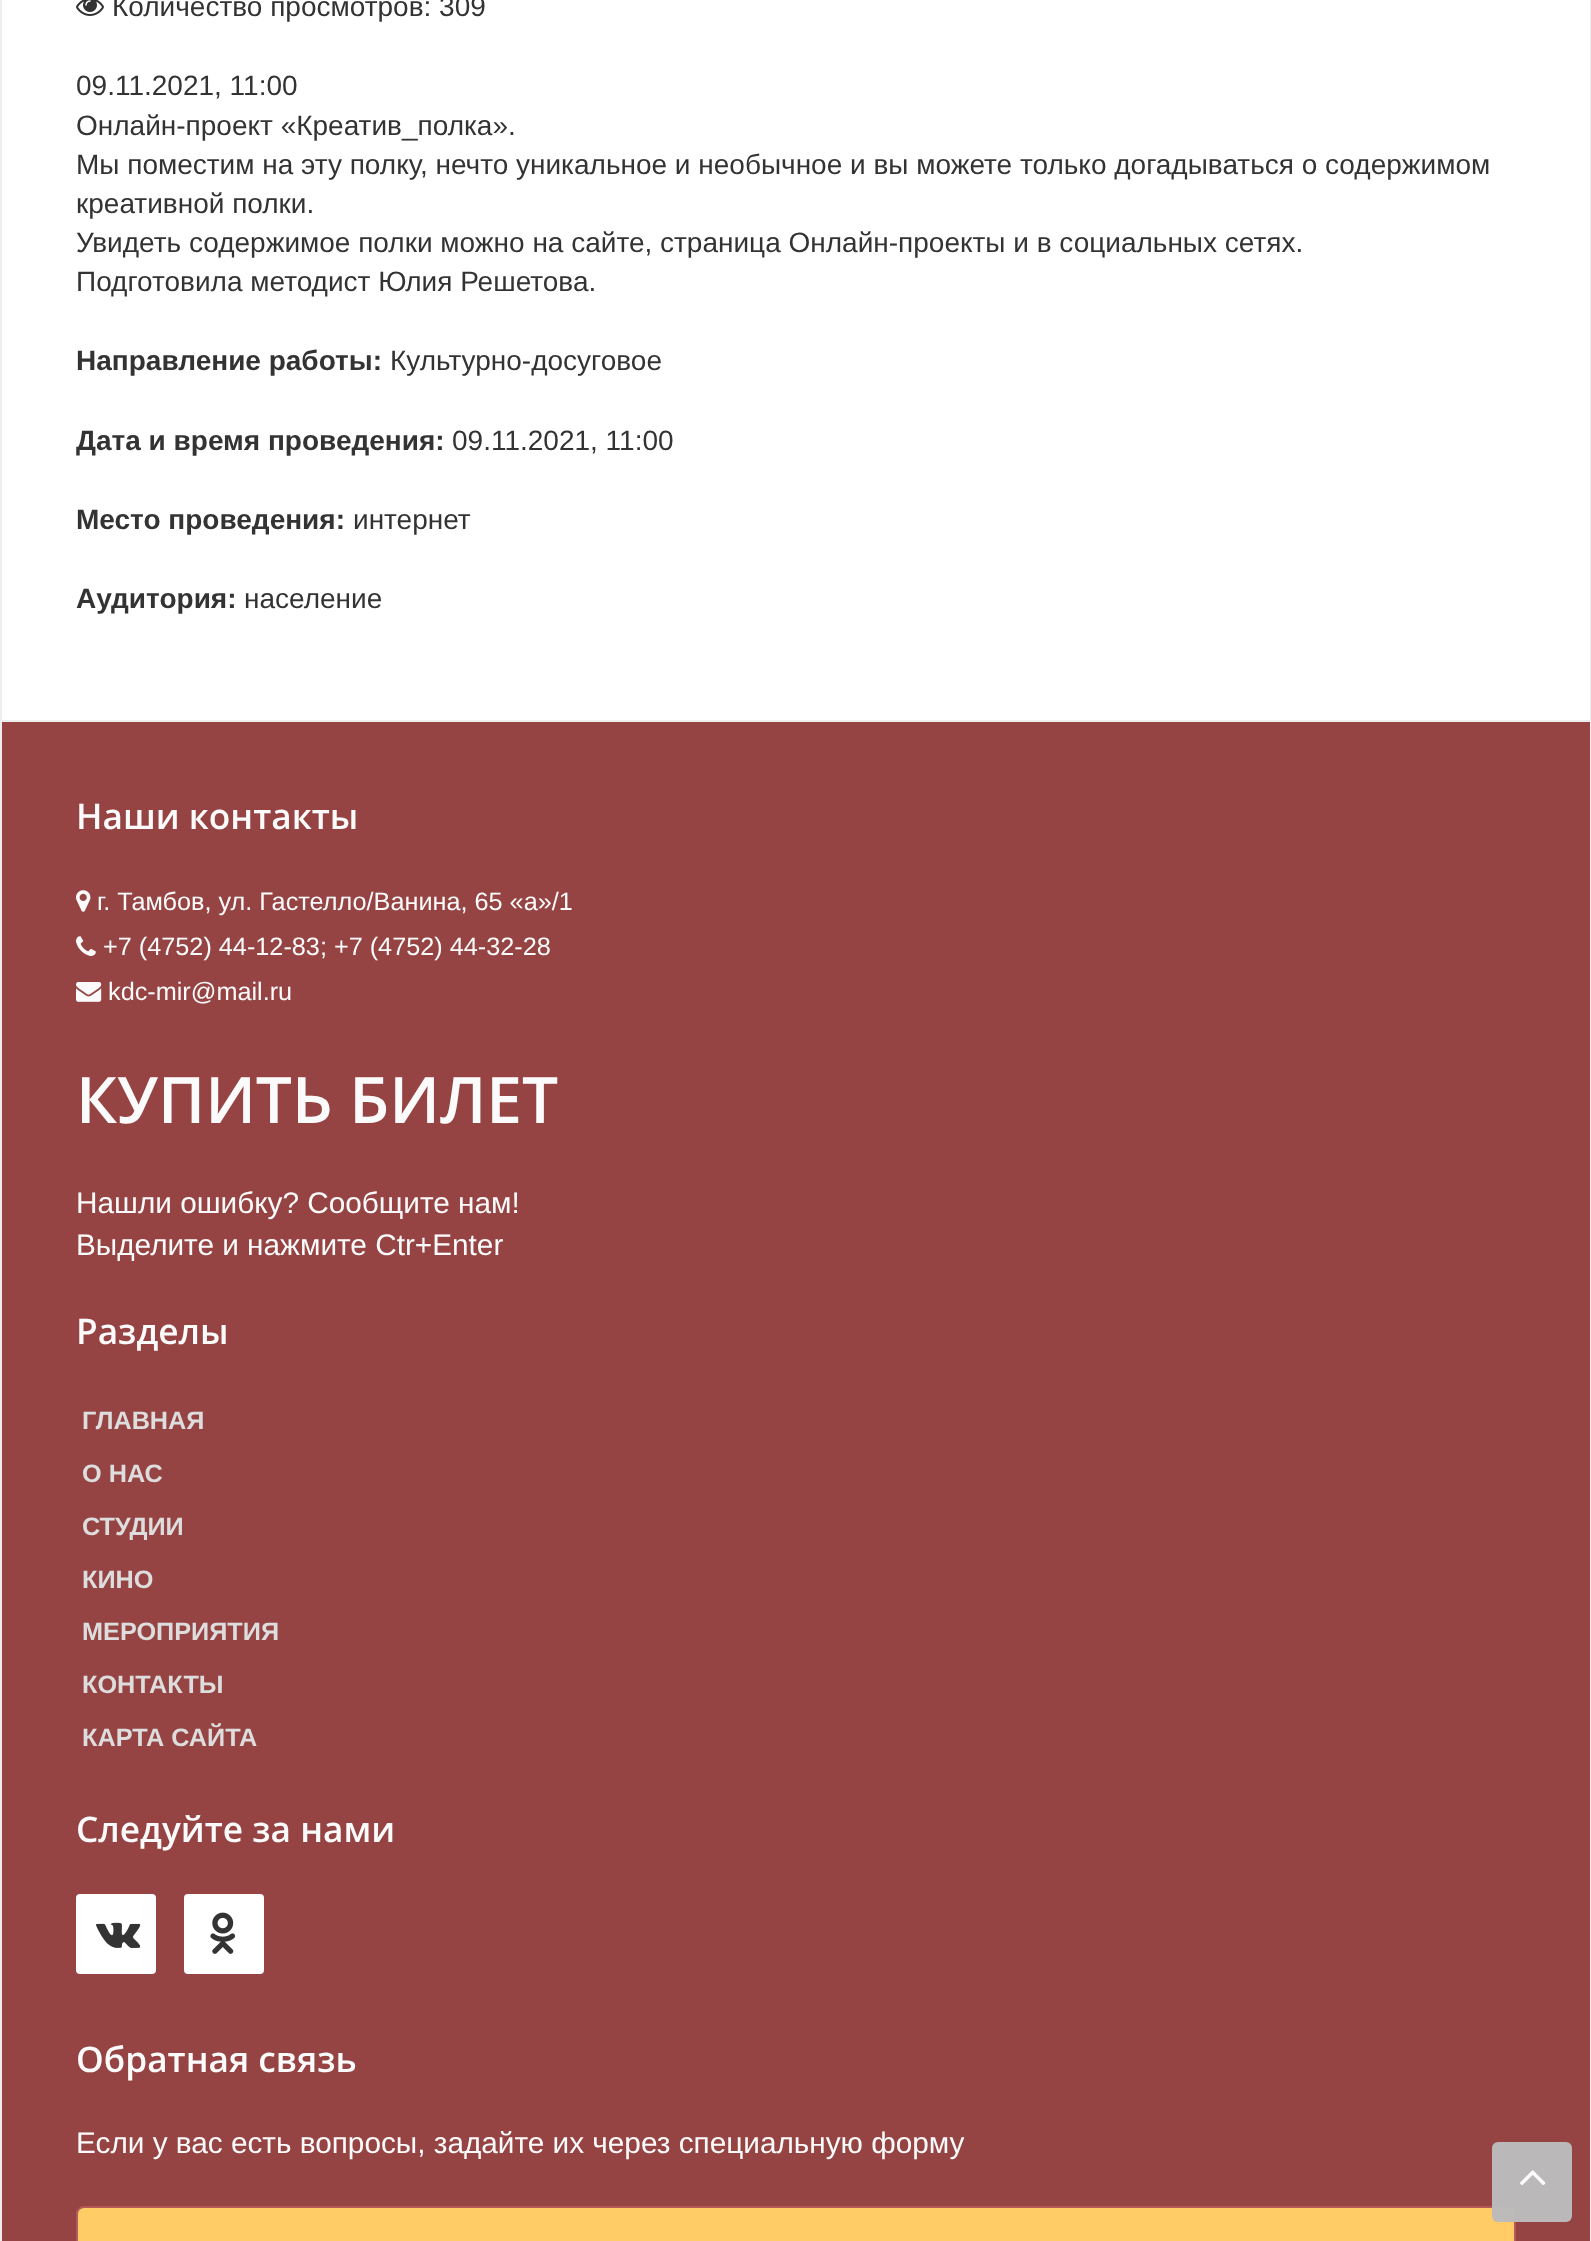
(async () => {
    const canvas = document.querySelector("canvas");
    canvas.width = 1591;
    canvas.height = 2241;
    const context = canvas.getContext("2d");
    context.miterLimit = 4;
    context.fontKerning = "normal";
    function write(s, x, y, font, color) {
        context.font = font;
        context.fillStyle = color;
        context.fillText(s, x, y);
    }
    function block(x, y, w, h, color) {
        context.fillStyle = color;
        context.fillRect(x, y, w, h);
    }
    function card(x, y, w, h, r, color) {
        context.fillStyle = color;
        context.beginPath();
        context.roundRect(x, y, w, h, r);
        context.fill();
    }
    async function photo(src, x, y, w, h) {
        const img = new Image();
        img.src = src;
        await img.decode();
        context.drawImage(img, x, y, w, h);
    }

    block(0, 0, 1591, 2241, "rgb(255, 255, 255)");
    context.strokeStyle = "rgb(238, 238, 238)";
    context.lineWidth = 2;
    context.strokeRect(1, -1, 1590, 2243);
    block(2, 720, 1588, 2, "rgb(238, 238, 238)");
    await photo("media/1.png", 76, 0, 28, 16);
    write("Количество просмотров: 309", 112, 16, "28px Liberation Sans", "rgb(51, 51, 51)");
    write("09.11.2021, 11:00", 76, 95, "28px Liberation Sans", "rgb(51, 51, 51)");
    write("Онлайн-проект «Креатив_полка».", 76, 135, "28px Liberation Sans", "rgb(51, 51, 51)");
    write("Мы поместим на эту полку, нечто уникальное и необычное и вы можете только догадываться о содержимом", 76, 174, "28px Liberation Sans", "rgb(51, 51, 51)");
    write("креативной полки.", 76, 213, "28px Liberation Sans", "rgb(51, 51, 51)");
    write("Увидеть содержимое полки можно на сайте, страница Онлайн-проекты и в социальных сетях.", 76, 252, "28px Liberation Sans", "rgb(51, 51, 51)");
    write("Подготовила методист Юлия Решетова.", 76, 291, "28px Liberation Sans", "rgb(51, 51, 51)");
    write("Направление работы:", 76, 370, "bold 28px Liberation Sans", "rgb(51, 51, 51)");
    write("Культурно-досуговое", 390, 370, "28px Liberation Sans", "rgb(51, 51, 51)");
    write("Дата и время проведения:", 76, 450, "bold 28px Liberation Sans", "rgb(51, 51, 51)");
    write("09.11.2021, 11:00", 452, 450, "28px Liberation Sans", "rgb(51, 51, 51)");
    write("Место проведения:", 76, 529, "bold 28px Liberation Sans", "rgb(51, 51, 51)");
    write("интернет", 353, 529, "28px Liberation Sans", "rgb(51, 51, 51)");
    write("Аудитория:", 76, 608, "bold 28px Liberation Sans", "rgb(51, 51, 51)");
    write("население", 244, 608, "28px Liberation Sans", "rgb(51, 51, 51)");
    block(2, 722, 1588, 1519, "rgb(149, 68, 67)");
    write("Наши контакты", 76, 829, "600 35.25px Open Sans", "rgb(251, 251, 251)");
    await photo("media/2.png", 76, 890, 15, 22);
    write("г. Тамбов, ул. Гастелло/Ванина, 65 «а»/1", 97, 910, "25.25px Liberation Sans", "rgb(251, 251, 251)");
    await photo("media/3.png", 76, 936, 20, 20);
    write("+7 (4752) 44-12-83; +7 (4752) 44-32-28", 103, 955, "25.25px Liberation Sans", "rgb(251, 251, 251)");
    await photo("media/4.png", 76, 982, 26, 20);
    write("kdc-mir@mail.ru", 108, 1000, "25.25px Liberation Sans", "rgb(251, 251, 251)");
    write("КУПИТЬ БИЛЕТ", 76, 1123, "600 64px Open Sans", "rgb(251, 251, 251)");
    write("Нашли ошибку? Сообщите нам!", 76, 1213, "29.75px Liberation Sans", "rgb(251, 251, 251)");
    write("Выделите и нажмите Ctr+Enter", 76, 1255, "29.75px Liberation Sans", "rgb(251, 251, 251)");
    write("Разделы", 76, 1344, "600 35.25px Open Sans", "rgb(251, 251, 251)");
    write("ГЛАВНАЯ", 82, 1429, "bold 25.25px Liberation Sans", "rgb(221, 221, 221)");
    write("О НАС", 82, 1482, "bold 25.25px Liberation Sans", "rgb(221, 221, 221)");
    write("СТУДИИ", 82, 1535, "bold 25.25px Liberation Sans", "rgb(221, 221, 221)");
    write("КИНО", 82, 1588, "bold 25.25px Liberation Sans", "rgb(221, 221, 221)");
    write("МЕРОПРИЯТИЯ", 82, 1640, "bold 25.25px Liberation Sans", "rgb(221, 221, 221)");
    write("КОНТАКТЫ", 82, 1693, "bold 25.25px Liberation Sans", "rgb(221, 221, 221)");
    write("КАРТА САЙТА", 82, 1746, "bold 25.25px Liberation Sans", "rgb(221, 221, 221)");
    write("Следуйте за нами", 76, 1842, "600 35.25px Open Sans", "rgb(251, 251, 251)");
    card(76, 1894, 80, 80, 4, "rgb(255, 255, 255)");
    await photo("media/5.png", 96, 1922, 45, 26);
    card(184, 1894, 80, 80, 4, "rgb(255, 255, 255)");
    await photo("media/6.png", 210, 1912, 26, 42);
    write("Обратная связь", 76, 2072, "600 35.25px Open Sans", "rgb(251, 251, 251)");
    write("Если у вас есть вопросы, задайте их через специальную форму", 76, 2153, "29.75px Liberation Sans", "rgb(251, 251, 251)");
    context.fillStyle = "rgb(255, 204, 102)";
    context.beginPath();
    context.roundRect(77, 2207, 1438, 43, 7);
    context.fill();
    context.strokeStyle = "rgb(180, 89, 87)";
    context.stroke();
    card(1492, 2142, 80, 80, 6, "rgba(187, 187, 187, 0.98)");
    await photo("media/7.png", 1520, 2170, 26, 15);
})();
